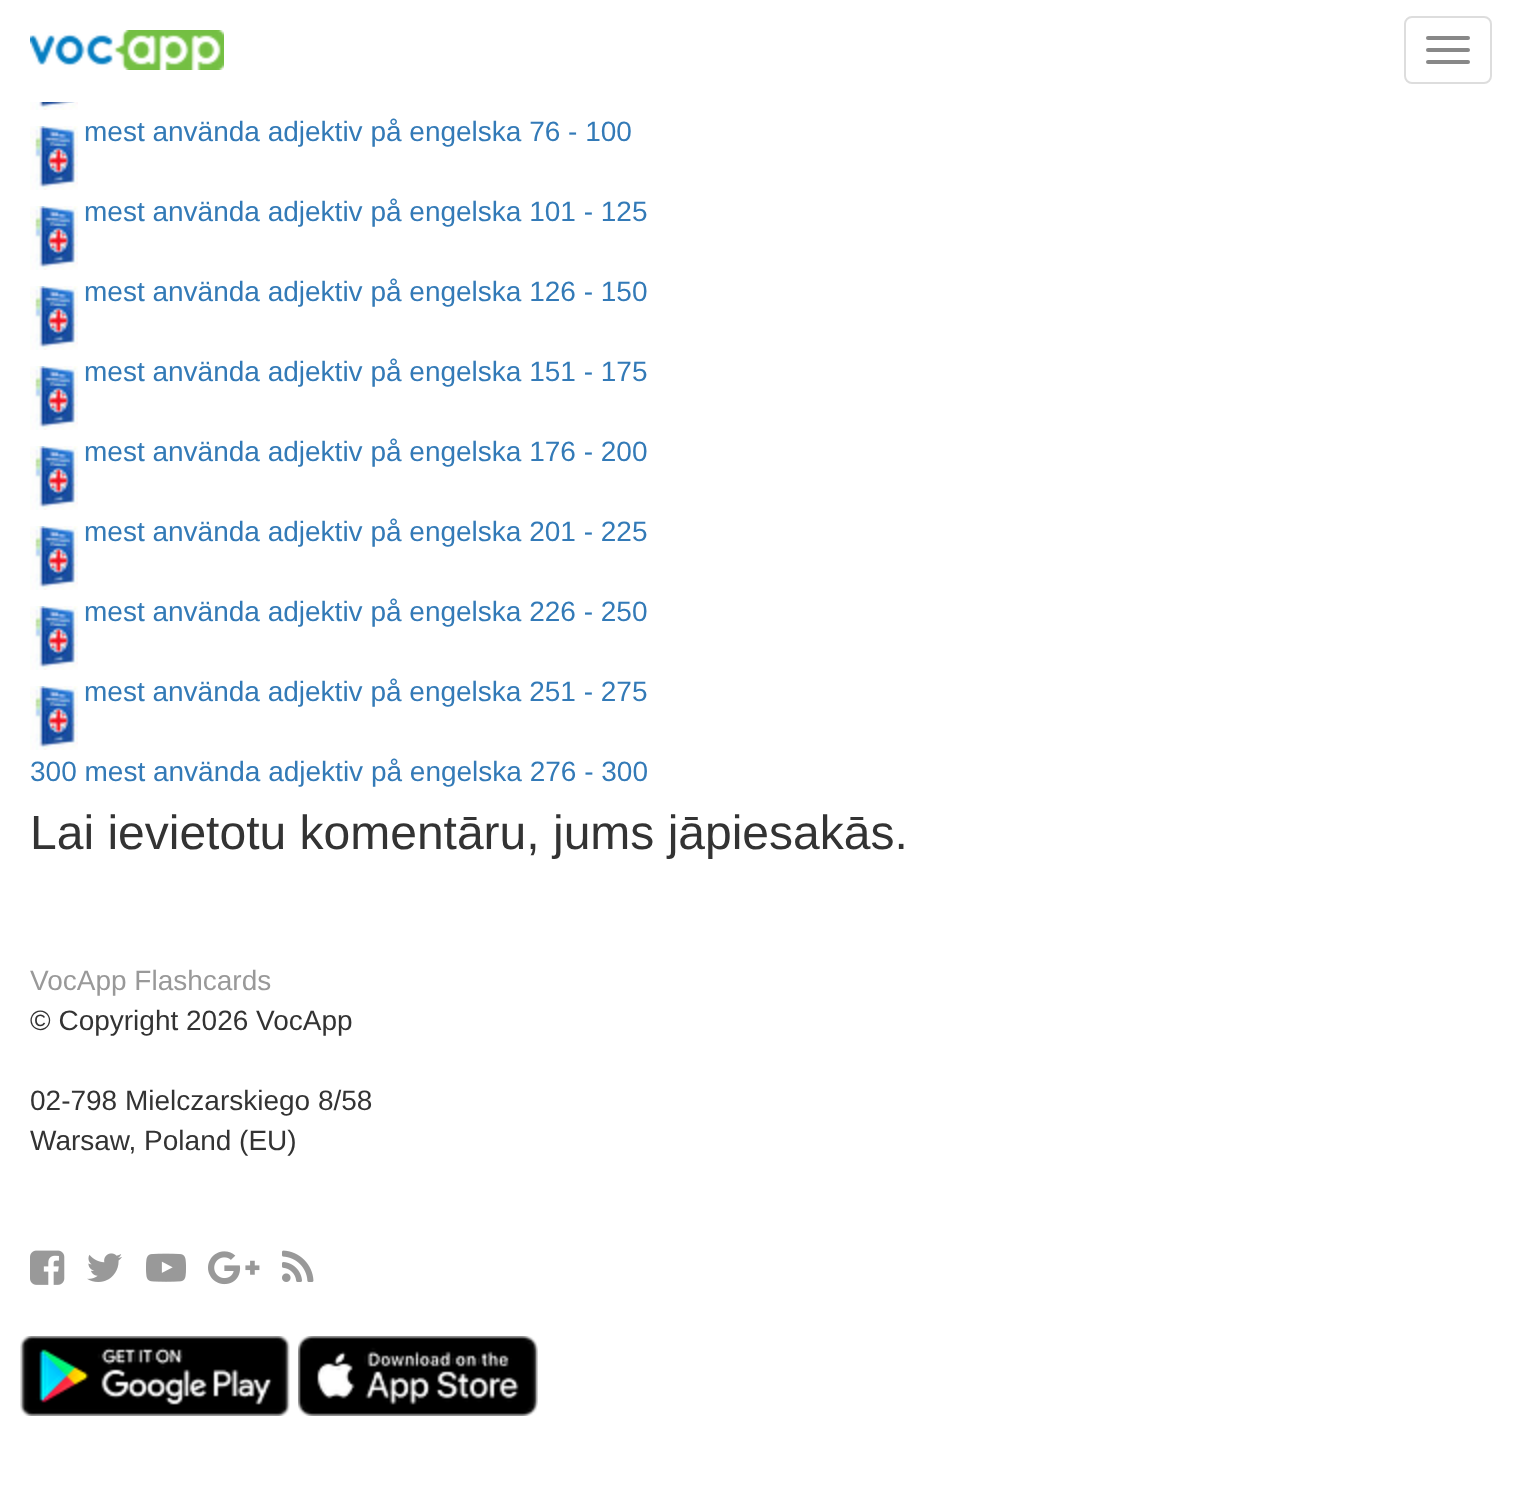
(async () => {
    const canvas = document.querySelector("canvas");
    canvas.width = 1521;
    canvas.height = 1493;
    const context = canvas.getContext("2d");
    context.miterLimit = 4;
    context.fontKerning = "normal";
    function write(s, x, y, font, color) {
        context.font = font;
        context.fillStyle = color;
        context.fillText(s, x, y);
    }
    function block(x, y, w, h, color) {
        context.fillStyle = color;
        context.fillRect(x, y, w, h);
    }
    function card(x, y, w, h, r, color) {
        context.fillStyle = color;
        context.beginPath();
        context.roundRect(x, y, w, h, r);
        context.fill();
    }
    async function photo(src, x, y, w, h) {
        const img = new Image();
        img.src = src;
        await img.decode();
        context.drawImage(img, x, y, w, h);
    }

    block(0, 0, 1521, 1493, "rgb(255, 255, 255)");
    await photo("media/1.png", 30, 30, 194, 40);
    context.beginPath();
    context.roundRect(1405, 17, 86, 66, 7);
    context.strokeStyle = "rgb(221, 221, 221)";
    context.lineWidth = 2;
    context.stroke();
    card(1426, 36, 44, 4, 2, "rgb(136, 136, 136)");
    card(1426, 48, 44, 4, 2, "rgb(136, 136, 136)");
    card(1426, 60, 44, 4, 2, "rgb(136, 136, 136)");
    await photo("media/2.png", 30, 102, 48, 8);
    write("mest använda adjektiv på engelska 76 - 100", 84, 141, "28px Liberation Sans", "rgb(51, 122, 183)");
    await photo("media/3.png", 30, 126, 48, 64);
    write("mest använda adjektiv på engelska 101 - 125", 84, 221, "28px Liberation Sans", "rgb(51, 122, 183)");
    await photo("media/3.png", 30, 206, 48, 64);
    write("mest använda adjektiv på engelska 126 - 150", 84, 301, "28px Liberation Sans", "rgb(51, 122, 183)");
    await photo("media/3.png", 30, 286, 48, 64);
    write("mest använda adjektiv på engelska 151 - 175", 84, 381, "28px Liberation Sans", "rgb(51, 122, 183)");
    await photo("media/3.png", 30, 366, 48, 64);
    write("mest använda adjektiv på engelska 176 - 200", 84, 461, "28px Liberation Sans", "rgb(51, 122, 183)");
    await photo("media/3.png", 30, 446, 48, 64);
    write("mest använda adjektiv på engelska 201 - 225", 84, 541, "28px Liberation Sans", "rgb(51, 122, 183)");
    await photo("media/3.png", 30, 526, 48, 64);
    write("mest använda adjektiv på engelska 226 - 250", 84, 621, "28px Liberation Sans", "rgb(51, 122, 183)");
    await photo("media/3.png", 30, 606, 48, 64);
    write("mest använda adjektiv på engelska 251 - 275", 84, 701, "28px Liberation Sans", "rgb(51, 122, 183)");
    await photo("media/3.png", 30, 686, 48, 64);
    write("300 mest använda adjektiv på engelska 276 - 300", 30, 781, "28px Liberation Sans", "rgb(51, 122, 183)");
    write("Lai ievietotu komentāru, jums jāpiesakās.", 30, 849, "48px Liberation Sans", "rgb(51, 51, 51)");
    write("VocApp Flashcards", 30, 990, "28px Liberation Sans", "rgb(153, 153, 153)");
    write("© Copyright 2026 VocApp", 30, 1030, "28px Liberation Sans", "rgb(51, 51, 51)");
    write("02-798 Mielczarskiego 8/58", 30, 1110, "28px Liberation Sans", "rgb(51, 51, 51)");
    write("Warsaw, Poland (EU)", 30, 1150, "28px Liberation Sans", "rgb(51, 51, 51)");
    await photo("media/4.png", 30, 1250, 35, 35);
    await photo("media/5.png", 87, 1253, 35, 29);
    await photo("media/6.png", 146, 1253, 40, 29);
    await photo("media/7.png", 208, 1251, 52, 34);
    await photo("media/8.png", 282, 1250, 32, 32);
    await photo("media/9.png", 20, 1336, 270, 80);
    await photo("media/10.png", 298, 1336, 240, 80);
})();
